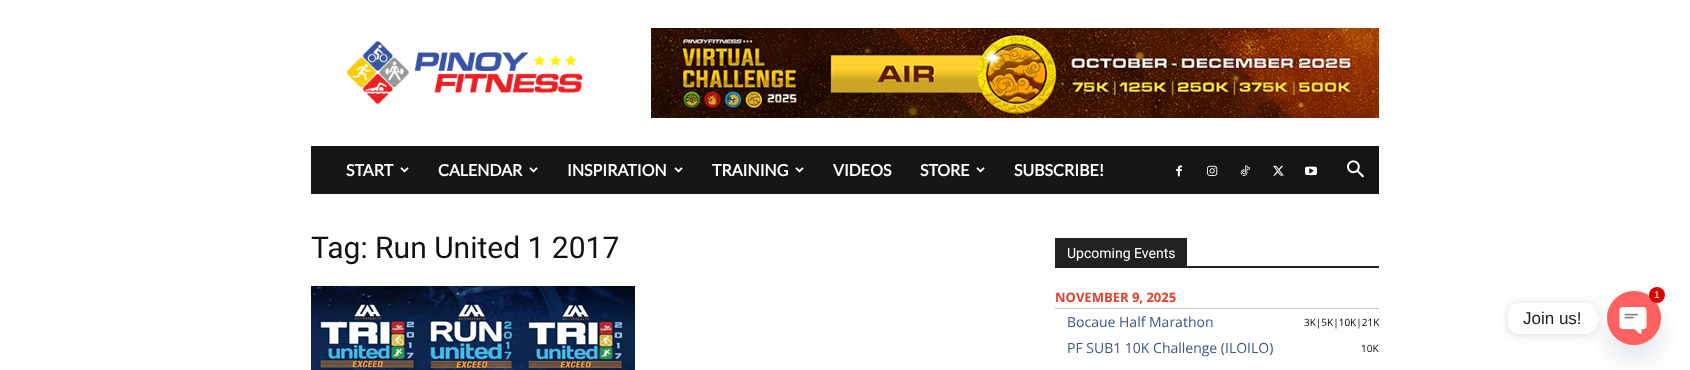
(async () => {
    const canvas = document.querySelector("canvas");
    canvas.width = 1690;
    canvas.height = 370;
    const context = canvas.getContext("2d");
    context.miterLimit = 4;
    context.fontKerning = "normal";
    function write(s, x, y, font, color) {
        context.font = font;
        context.fillStyle = color;
        context.fillText(s, x, y);
    }
    function block(x, y, w, h, color) {
        context.fillStyle = color;
        context.fillRect(x, y, w, h);
    }
    function card(x, y, w, h, r, color) {
        context.fillStyle = color;
        context.beginPath();
        context.roundRect(x, y, w, h, r);
        context.fill();
    }
    async function photo(src, x, y, w, h) {
        const img = new Image();
        img.src = src;
        await img.decode();
        context.drawImage(img, x, y, w, h);
    }

    block(0, 0, 1690, 370, "rgb(255, 255, 255)");
    await photo("media/1.png", 347, 41, 236, 63);
    await photo("media/2.png", 651, 28, 728, 90);
    block(311, 146, 1068, 48, "rgb(21, 21, 21)");
    write("START", 346, 176, "bold 16px Lato", "rgb(255, 255, 255)");
    await photo("media/3.png", 400, 167, 9, 6);
    write("CALENDAR", 438, 176, "bold 16px Lato", "rgb(255, 255, 255)");
    await photo("media/3.png", 529, 167, 9, 6);
    write("INSPIRATION", 567, 176, "bold 16px Lato", "rgb(255, 255, 255)");
    await photo("media/3.png", 674, 167, 9, 6);
    write("TRAINING", 712, 176, "bold 16px Lato", "rgb(255, 255, 255)");
    await photo("media/3.png", 795, 167, 9, 6);
    write("VIDEOS", 833, 176, "bold 16px Lato", "rgb(255, 255, 255)");
    write("STORE", 920, 176, "bold 16px Lato", "rgb(255, 255, 255)");
    await photo("media/3.png", 976, 167, 9, 6);
    write("SUBSCRIBE!", 1014, 176, "bold 16px Lato", "rgb(255, 255, 255)");
    await photo("media/4.png", 1176, 165, 6, 12);
    await photo("media/5.png", 1207, 165, 11, 11);
    await photo("media/6.png", 1240, 165, 10, 11);
    await photo("media/7.png", 1273, 165, 11, 11);
    await photo("media/8.png", 1305, 166, 12, 10);
    await photo("media/9.png", 1347, 160, 17, 18);
    write("Tag: Run United 1 2017", 311, 258, "30px Roboto", "rgb(17, 17, 17)");
    await photo("media/10.png", 311, 286, 324, 84);
    block(1055, 266, 324, 2, "rgb(34, 34, 34)");
    block(1055, 238, 132, 28, "rgb(34, 34, 34)");
    write("Upcoming Events", 1067, 258, "14px Roboto", "rgb(255, 255, 255)");
    block(1055, 308, 324, 1, "rgb(202, 202, 202)");
    write("NOVEMBER 9, 2025", 1055, 302, "bold 13px Open Sans", "rgb(228, 64, 43)");
    write("Bocaue Half Marathon", 1067, 327, "14px Open Sans", "rgb(58, 85, 140)");
    write("3K|5K|10K|21K", 1304, 326, "10px Open Sans", "rgb(0, 0, 0)");
    write("PF SUB1 10K Challenge (ILOILO)", 1067, 353, "14px Open Sans", "rgb(58, 85, 140)");
    write("10K", 1361, 352, "10px Open Sans", "rgb(0, 0, 0)");
    context.fillStyle = "rgba(0, 0, 0, 0.15)";
    context.filter = "blur(4px)";
    context.beginPath();
    context.roundRect(1508, 304, 89, 31, 10);
    context.fill();
    context.filter = "none";
    card(1508, 303, 89, 31, 10, "rgb(255, 255, 255)");
    context.beginPath();
    context.moveTo(1597, 323.5);
    context.lineTo(1597, 313.5);
    context.lineTo(1602, 318.5);
    context.closePath();
    context.fill();
    context.fillStyle = "rgba(73, 104, 126, 0.16)";
    context.filter = "blur(12px)";
    context.beginPath();
    context.roundRect(1607, 307, 54, 54, 27);
    context.fill();
    context.filter = "none";
    await photo("media/11.png", 1607, 291, 54, 54);
    context.fillStyle = "rgb(221, 0, 0)";
    context.beginPath();
    context.arc(1657, 295, 8, 0, Math.PI * 2);
    context.fill();
    write("1", 1654, 298, "10px Liberation Sans", "rgb(255, 255, 255)");
    write("Join us!", 1523, 324, "17px Liberation Sans", "rgb(32, 32, 32)");
})();
